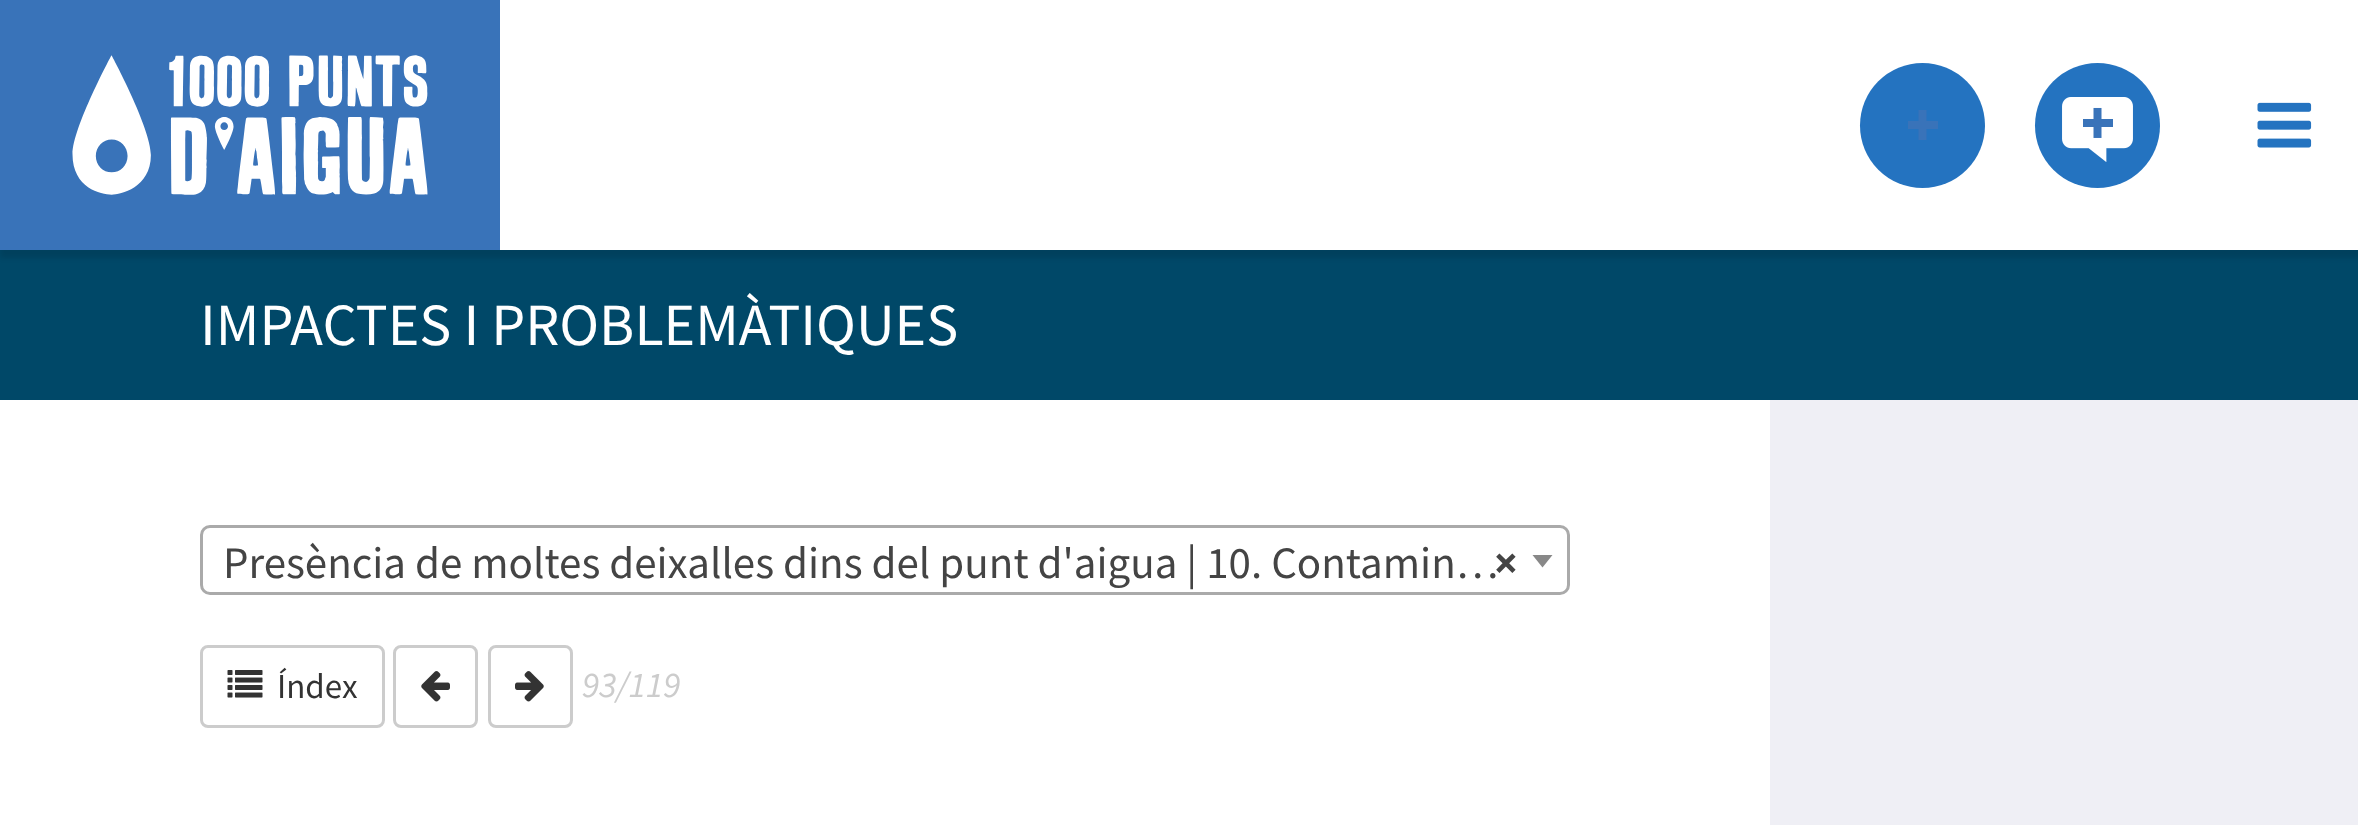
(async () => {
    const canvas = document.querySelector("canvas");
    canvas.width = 2358;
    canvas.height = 825;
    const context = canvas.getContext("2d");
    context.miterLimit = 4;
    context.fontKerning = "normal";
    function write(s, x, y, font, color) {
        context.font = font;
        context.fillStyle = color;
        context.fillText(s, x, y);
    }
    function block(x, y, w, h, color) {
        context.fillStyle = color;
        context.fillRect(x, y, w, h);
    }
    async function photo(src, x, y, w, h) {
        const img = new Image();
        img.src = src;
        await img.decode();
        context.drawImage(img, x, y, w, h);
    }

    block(0, 0, 2358, 825, "rgb(0, 72, 104)");
    context.fillStyle = "rgba(0, 0, 0, 0.1)";
    context.filter = "blur(2.5px)";
    context.beginPath();
    context.rect(0, 8, 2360, 250);
    context.fill();
    context.filter = "none";
    block(500, 0, 1858, 250, "rgb(255, 255, 255)");
    await photo("media/1.png", 0, 0, 500, 250);
    context.fillStyle = "rgb(36, 115, 192)";
    context.beginPath();
    context.arc(1922.5, 125.5, 62.5, 0, Math.PI * 2);
    context.fill();
    context.beginPath();
    context.moveTo(1922.5, 110);
    context.lineTo(1922.5, 140);
    context.strokeStyle = "rgb(57, 115, 185)";
    context.lineWidth = 8;
    context.stroke();
    block(1908, 121, 30, 8, "rgb(57, 115, 185)");
    context.fillStyle = "rgb(36, 115, 192)";
    context.beginPath();
    context.arc(2097.5, 125.5, 62.5, 0, Math.PI * 2);
    context.fill();
    await photo("media/2.png", 2062, 97, 71, 65);
    await photo("media/3.png", 2257, 102, 55, 46);
    block(0, 400, 1770, 425, "rgb(255, 255, 255)");
    write("IMPACTES I PROBLEMÀTIQUES", 200, 345, "60px Source Sans Pro", "rgb(255, 255, 255)");
    context.beginPath();
    context.roundRect(201.5, 526.5, 1367, 67, 8.5);
    context.strokeStyle = "rgb(170, 170, 170)";
    context.lineWidth = 3;
    context.stroke();
    write("Presència de moltes deixalles dins del punt d'aigua | 10. Contamin…", 223, 578, "45px Source Sans Pro", "rgb(68, 68, 68)");
    write("×", 1494, 578, "bold 45px Source Sans Pro", "rgb(68, 68, 68)");
    context.fillStyle = "rgb(136, 136, 136)";
    context.beginPath();
    context.moveTo(1532.5, 555);
    context.lineTo(1552.5, 555);
    context.lineTo(1542.5, 567.5);
    context.closePath();
    context.fill();
    context.beginPath();
    context.roundRect(201.5, 646.5, 182, 80, 6.5);
    context.strokeStyle = "rgb(204, 204, 204)";
    context.stroke();
    await photo("media/4.png", 227, 670, 36, 28);
    write("Índex", 277, 698, "35px Source Sans Pro", "rgb(51, 51, 51)");
    context.beginPath();
    context.roundRect(394.5, 646.5, 82, 80, 6.5);
    context.stroke();
    await photo("media/5.png", 421, 671, 29, 31);
    context.beginPath();
    context.roundRect(489.5, 646.5, 82, 80, 6.5);
    context.stroke();
    await photo("media/6.png", 515, 671, 29, 31);
    write("93/119", 582, 697, "italic 36px Source Sans Pro", "rgb(204, 204, 204)");
    block(1770, 400, 588, 425, "rgb(239, 239, 245)");
})();
